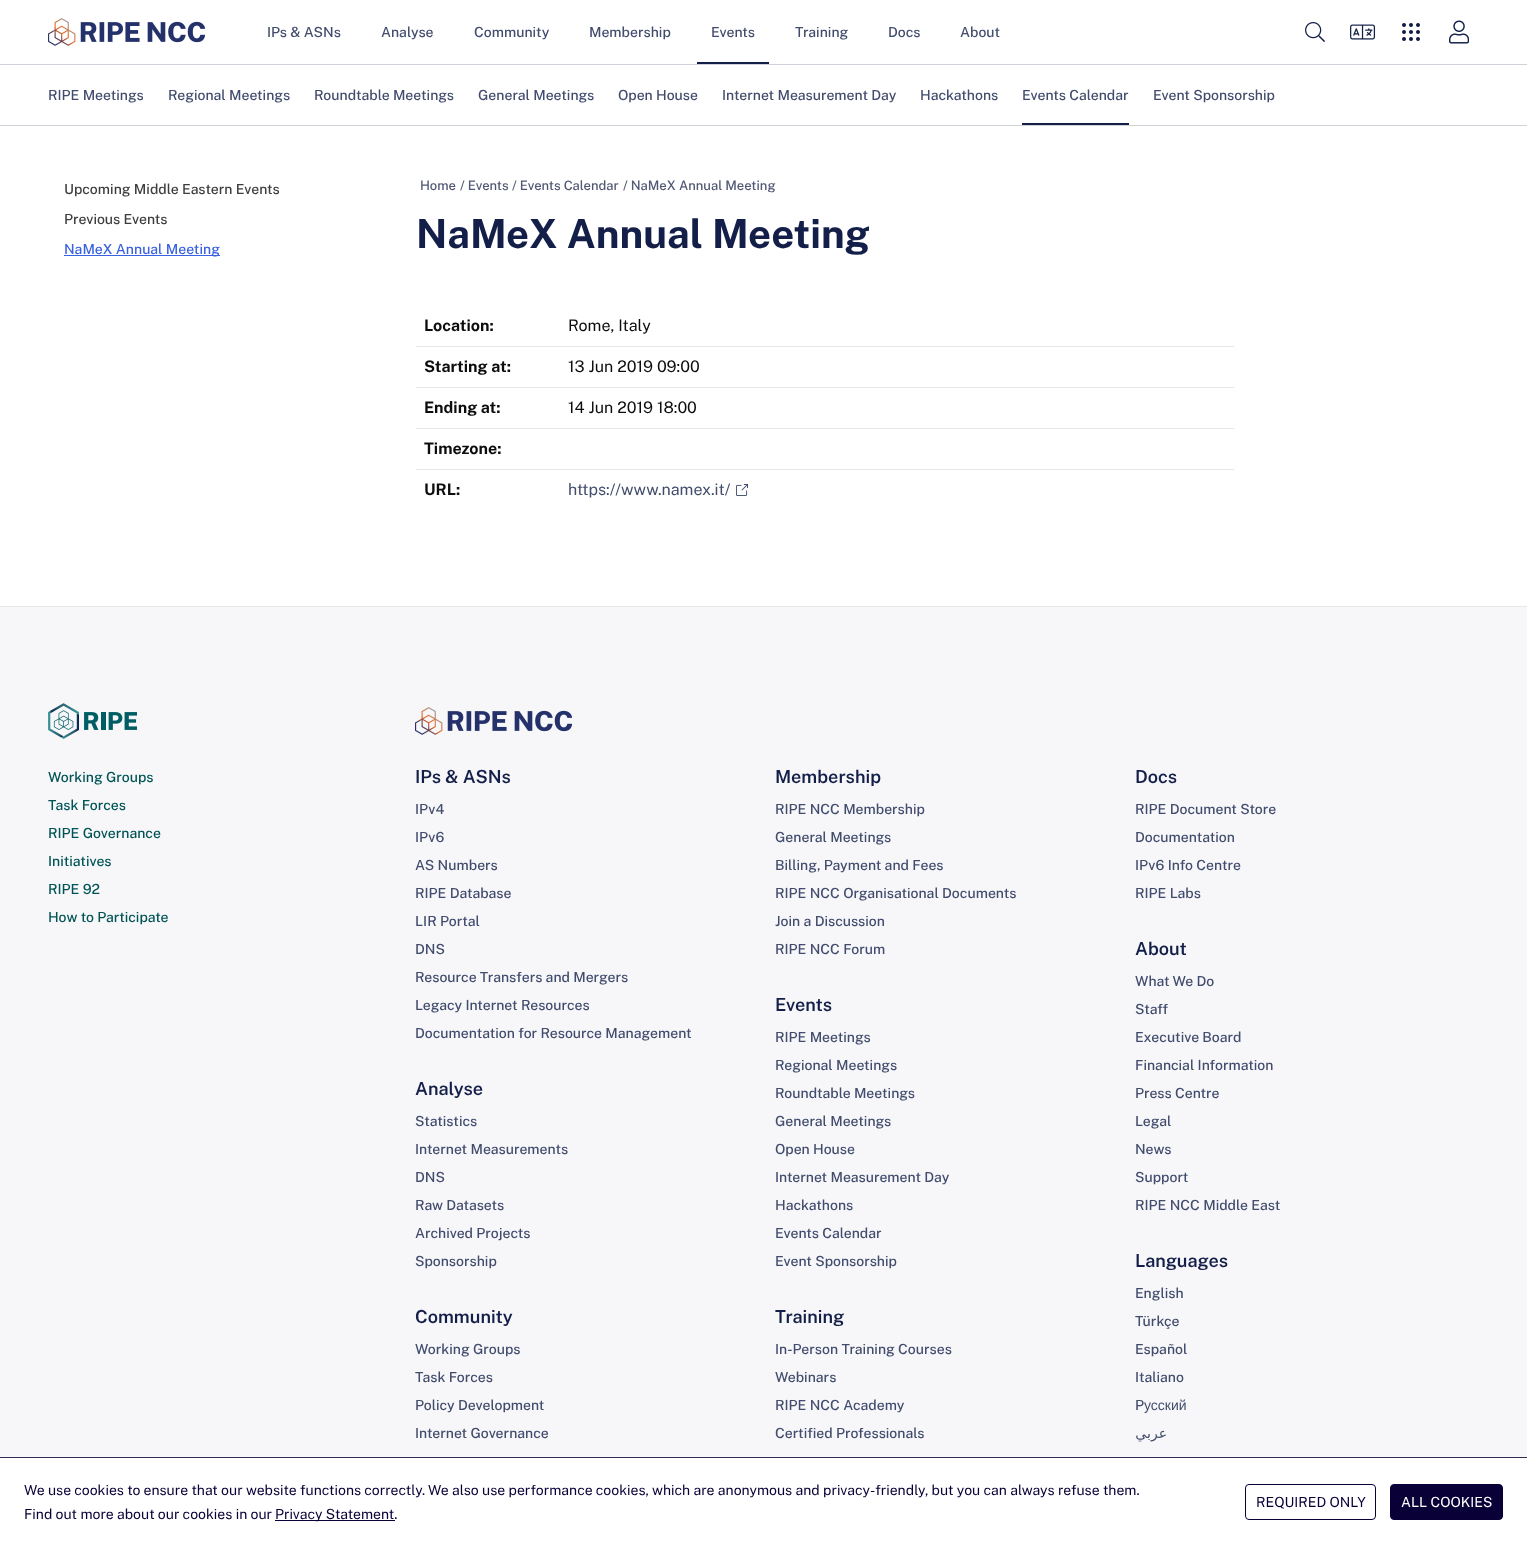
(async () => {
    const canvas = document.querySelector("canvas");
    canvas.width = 1527;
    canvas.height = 1546;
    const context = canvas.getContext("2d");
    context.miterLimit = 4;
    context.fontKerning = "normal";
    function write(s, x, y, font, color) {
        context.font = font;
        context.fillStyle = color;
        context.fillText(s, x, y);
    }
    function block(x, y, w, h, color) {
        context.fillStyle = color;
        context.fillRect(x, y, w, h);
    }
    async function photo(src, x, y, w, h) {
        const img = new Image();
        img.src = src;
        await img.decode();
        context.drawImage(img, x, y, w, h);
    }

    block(0, 0, 1527, 1546, "rgb(255, 255, 255)");
    await photo("media/1.png", 48, 18, 157, 28);
    write("IPs & ASNs", 267, 37, "500 14px Public Sans", "rgb(66, 76, 109)");
    write("Analyse", 381, 37, "500 14px Public Sans", "rgb(66, 76, 109)");
    write("Community", 474, 37, "500 14px Public Sans", "rgb(66, 76, 109)");
    write("Membership", 589, 37, "500 14px Public Sans", "rgb(66, 76, 109)");
    block(697, 62, 72, 2, "rgb(19, 31, 72)");
    write("Events", 711, 37, "500 14px Public Sans", "rgb(66, 76, 109)");
    write("Training", 795, 37, "500 14px Public Sans", "rgb(66, 76, 109)");
    write("Docs", 888, 37, "500 14px Public Sans", "rgb(66, 76, 109)");
    write("About", 960, 37, "500 14px Public Sans", "rgb(66, 76, 109)");
    await photo("media/2.png", 1305, 22, 20, 20);
    await photo("media/3.png", 1350, 24, 26, 16);
    await photo("media/4.png", 1402, 23, 18, 18);
    await photo("media/5.png", 1449, 20, 20, 24);
    block(0, 64, 1527, 1, "rgb(208, 210, 218)");
    block(0, 125, 1527, 1, "rgb(208, 210, 218)");
    write("RIPE Meetings", 48, 100, "500 14px Public Sans", "rgb(66, 76, 109)");
    write("Regional Meetings", 168, 100, "500 14px Public Sans", "rgb(66, 76, 109)");
    write("Roundtable Meetings", 314, 100, "500 14px Public Sans", "rgb(66, 76, 109)");
    write("General Meetings", 478, 100, "500 14px Public Sans", "rgb(66, 76, 109)");
    write("Open House", 618, 100, "500 14px Public Sans", "rgb(66, 76, 109)");
    write("Internet Measurement Day", 722, 100, "500 14px Public Sans", "rgb(66, 76, 109)");
    write("Hackathons", 920, 100, "500 14px Public Sans", "rgb(66, 76, 109)");
    block(1022, 123, 107, 2, "rgb(19, 31, 72)");
    write("Events Calendar", 1022, 100, "500 14px Public Sans", "rgb(66, 76, 109)");
    write("Event Sponsorship", 1153, 100, "500 14px Public Sans", "rgb(66, 76, 109)");
    write("Upcoming Middle Eastern Events", 64, 194, "500 14px Public Sans", "rgb(61, 61, 61)");
    write("Previous Events", 64, 224, "500 14px Public Sans", "rgb(61, 61, 61)");
    block(64, 255, 156, 1, "rgb(58, 97, 224)");
    write("NaMeX Annual Meeting", 64, 254, "500 14px Public Sans", "rgb(58, 97, 224)");
    write("Home", 420, 190, "500 13px Public Sans", "rgb(81, 88, 115)");
    write("/ Events", 460, 190, "500 13px Public Sans", "rgb(81, 88, 115)");
    write("/ Events Calendar", 512, 190, "500 13px Public Sans", "rgb(81, 88, 115)");
    write("/ NaMeX Annual Meeting", 623, 190, "500 13px Public Sans", "rgb(81, 88, 115)");
    write("NaMeX Annual Meeting", 416, 248, "bold 40px Public Sans", "rgb(19, 31, 72)");
    write("Location:", 424, 331, "bold 16px Public Sans", "rgb(13, 13, 13)");
    write("Rome, Italy", 568, 331, "16px Public Sans", "rgb(13, 13, 13)");
    block(416, 346, 818, 1, "rgb(229, 231, 235)");
    write("Starting at:", 424, 372, "bold 16px Public Sans", "rgb(13, 13, 13)");
    write("13 Jun 2019 09:00", 568, 372, "16px Public Sans", "rgb(13, 13, 13)");
    block(416, 387, 818, 1, "rgb(229, 231, 235)");
    write("Ending at:", 424, 413, "bold 16px Public Sans", "rgb(13, 13, 13)");
    write("14 Jun 2019 18:00", 568, 413, "16px Public Sans", "rgb(13, 13, 13)");
    block(416, 428, 818, 1, "rgb(229, 231, 235)");
    write("Timezone:", 424, 454, "bold 16px Public Sans", "rgb(13, 13, 13)");
    block(416, 469, 818, 1, "rgb(229, 231, 235)");
    write("URL:", 424, 495, "bold 16px Public Sans", "rgb(13, 13, 13)");
    write("https://www.namex.it/", 568, 495, "16px Public Sans", "rgb(66, 76, 109)");
    await photo("media/6.png", 736, 484, 12, 12);
    block(0, 607, 1527, 850, "rgb(247, 247, 250)");
    block(0, 606, 1527, 1, "rgb(229, 231, 235)");
    await photo("media/7.png", 48, 703, 89, 36);
    write("Working Groups", 48, 782, "500 14px Public Sans", "rgb(0, 84, 85)");
    write("Task Forces", 48, 810, "500 14px Public Sans", "rgb(0, 84, 85)");
    write("RIPE Governance", 48, 838, "500 14px Public Sans", "rgb(0, 84, 85)");
    write("Initiatives", 48, 866, "500 14px Public Sans", "rgb(0, 84, 85)");
    write("RIPE 92", 48, 894, "500 14px Public Sans", "rgb(0, 84, 85)");
    write("How to Participate", 48, 922, "500 14px Public Sans", "rgb(0, 84, 85)");
    await photo("media/8.png", 415, 707, 157, 28);
    write("IPs & ASNs", 415, 783, "600 18px Public Sans", "rgb(19, 31, 72)");
    write("IPv4", 415, 814, "500 14px Public Sans", "rgb(66, 76, 109)");
    write("IPv6", 415, 842, "500 14px Public Sans", "rgb(66, 76, 109)");
    write("AS Numbers", 415, 870, "500 14px Public Sans", "rgb(66, 76, 109)");
    write("RIPE Database", 415, 898, "500 14px Public Sans", "rgb(66, 76, 109)");
    write("LIR Portal", 415, 926, "500 14px Public Sans", "rgb(66, 76, 109)");
    write("DNS", 415, 954, "500 14px Public Sans", "rgb(66, 76, 109)");
    write("Resource Transfers and Mergers", 415, 982, "500 14px Public Sans", "rgb(66, 76, 109)");
    write("Legacy Internet Resources", 415, 1010, "500 14px Public Sans", "rgb(66, 76, 109)");
    write("Documentation for Resource Management", 415, 1038, "500 14px Public Sans", "rgb(66, 76, 109)");
    write("Membership", 775, 783, "600 18px Public Sans", "rgb(19, 31, 72)");
    write("RIPE NCC Membership", 775, 814, "500 14px Public Sans", "rgb(66, 76, 109)");
    write("General Meetings", 775, 842, "500 14px Public Sans", "rgb(66, 76, 109)");
    write("Billing, Payment and Fees", 775, 870, "500 14px Public Sans", "rgb(66, 76, 109)");
    write("RIPE NCC Organisational Documents", 775, 898, "500 14px Public Sans", "rgb(66, 76, 109)");
    write("Join a Discussion", 775, 926, "500 14px Public Sans", "rgb(66, 76, 109)");
    write("RIPE NCC Forum", 775, 954, "500 14px Public Sans", "rgb(66, 76, 109)");
    write("Docs", 1135, 783, "600 18px Public Sans", "rgb(19, 31, 72)");
    write("RIPE Document Store", 1135, 814, "500 14px Public Sans", "rgb(66, 76, 109)");
    write("Documentation", 1135, 842, "500 14px Public Sans", "rgb(66, 76, 109)");
    write("IPv6 Info Centre", 1135, 870, "500 14px Public Sans", "rgb(66, 76, 109)");
    write("RIPE Labs", 1135, 898, "500 14px Public Sans", "rgb(66, 76, 109)");
    write("Analyse", 415, 1095, "600 18px Public Sans", "rgb(19, 31, 72)");
    write("Statistics", 415, 1126, "500 14px Public Sans", "rgb(66, 76, 109)");
    write("Internet Measurements", 415, 1154, "500 14px Public Sans", "rgb(66, 76, 109)");
    write("DNS", 415, 1182, "500 14px Public Sans", "rgb(66, 76, 109)");
    write("Raw Datasets", 415, 1210, "500 14px Public Sans", "rgb(66, 76, 109)");
    write("Archived Projects", 415, 1238, "500 14px Public Sans", "rgb(66, 76, 109)");
    write("Sponsorship", 415, 1266, "500 14px Public Sans", "rgb(66, 76, 109)");
    write("Events", 775, 1011, "600 18px Public Sans", "rgb(19, 31, 72)");
    write("RIPE Meetings", 775, 1042, "500 14px Public Sans", "rgb(66, 76, 109)");
    write("Regional Meetings", 775, 1070, "500 14px Public Sans", "rgb(66, 76, 109)");
    write("Roundtable Meetings", 775, 1098, "500 14px Public Sans", "rgb(66, 76, 109)");
    write("General Meetings", 775, 1126, "500 14px Public Sans", "rgb(66, 76, 109)");
    write("Open House", 775, 1154, "500 14px Public Sans", "rgb(66, 76, 109)");
    write("Internet Measurement Day", 775, 1182, "500 14px Public Sans", "rgb(66, 76, 109)");
    write("Hackathons", 775, 1210, "500 14px Public Sans", "rgb(66, 76, 109)");
    write("Events Calendar", 775, 1238, "500 14px Public Sans", "rgb(66, 76, 109)");
    write("Event Sponsorship", 775, 1266, "500 14px Public Sans", "rgb(66, 76, 109)");
    write("About", 1135, 955, "600 18px Public Sans", "rgb(19, 31, 72)");
    write("What We Do", 1135, 986, "500 14px Public Sans", "rgb(66, 76, 109)");
    write("Staff", 1135, 1014, "500 14px Public Sans", "rgb(66, 76, 109)");
    write("Executive Board", 1135, 1042, "500 14px Public Sans", "rgb(66, 76, 109)");
    write("Financial Information", 1135, 1070, "500 14px Public Sans", "rgb(66, 76, 109)");
    write("Press Centre", 1135, 1098, "500 14px Public Sans", "rgb(66, 76, 109)");
    write("Legal", 1135, 1126, "500 14px Public Sans", "rgb(66, 76, 109)");
    write("News", 1135, 1154, "500 14px Public Sans", "rgb(66, 76, 109)");
    write("Support", 1135, 1182, "500 14px Public Sans", "rgb(66, 76, 109)");
    write("RIPE NCC Middle East", 1135, 1210, "500 14px Public Sans", "rgb(66, 76, 109)");
    write("Community", 415, 1323, "600 18px Public Sans", "rgb(19, 31, 72)");
    write("Working Groups", 415, 1354, "500 14px Public Sans", "rgb(66, 76, 109)");
    write("Task Forces", 415, 1382, "500 14px Public Sans", "rgb(66, 76, 109)");
    write("Policy Development", 415, 1410, "500 14px Public Sans", "rgb(66, 76, 109)");
    write("Internet Governance", 415, 1438, "500 14px Public Sans", "rgb(66, 76, 109)");
    write("Training", 775, 1323, "600 18px Public Sans", "rgb(19, 31, 72)");
    write("In-Person Training Courses", 775, 1354, "500 14px Public Sans", "rgb(66, 76, 109)");
    write("Webinars", 775, 1382, "500 14px Public Sans", "rgb(66, 76, 109)");
    write("RIPE NCC Academy", 775, 1410, "500 14px Public Sans", "rgb(66, 76, 109)");
    write("Certified Professionals", 775, 1438, "500 14px Public Sans", "rgb(66, 76, 109)");
    write("Languages", 1135, 1267, "600 18px Public Sans", "rgb(19, 31, 72)");
    write("English", 1135, 1298, "500 14px Public Sans", "rgb(66, 76, 109)");
    write("Türkçe", 1135, 1326, "500 14px Public Sans", "rgb(66, 76, 109)");
    write("Español", 1135, 1354, "500 14px Public Sans", "rgb(66, 76, 109)");
    write("Italiano", 1135, 1382, "500 14px Public Sans", "rgb(66, 76, 109)");
    write("P", 1135, 1410, "500 14px Public Sans", "rgb(66, 76, 109)");
    write("усский", 1144, 1410, "14px Liberation Sans", "rgb(66, 76, 109)");
    context.direction = "rtl";
    write("عربي", 1167, 1438, "14px DejaVu Sans", "rgb(66, 76, 109)");
    block(0, 1457, 1527, 1, "rgb(47, 44, 86)");
    context.direction = "ltr";
    write("We use cookies to ensure that our website functions correctly. We also use performance cookies, which are anonymous and privacy-friendly, but you can always refuse them.", 24, 1495, "14px Public Sans", "rgb(8, 0, 55)");
    write("Find out more about our cookies in our", 24, 1519, "14px Public Sans", "rgb(8, 0, 55)");
    block(275, 1520, 120, 1, "rgb(8, 0, 55)");
    write("Privacy Statement.", 275, 1519, "14px Public Sans", "rgb(8, 0, 55)");
    context.beginPath();
    context.roundRect(1245.5, 1484.5, 130, 35, 3.5);
    context.strokeStyle = "rgb(8, 0, 55)";
    context.stroke();
    write("REQUIRED ONLY", 1256, 1507, "14px Public Sans", "rgb(8, 0, 55)");
    context.beginPath();
    context.roundRect(1390.5, 1484.5, 112, 35, 3.5);
    context.fill();
    context.stroke();
    write("ALL COOKIES", 1401, 1507, "14px Public Sans", "rgb(255, 255, 255)");
})();
